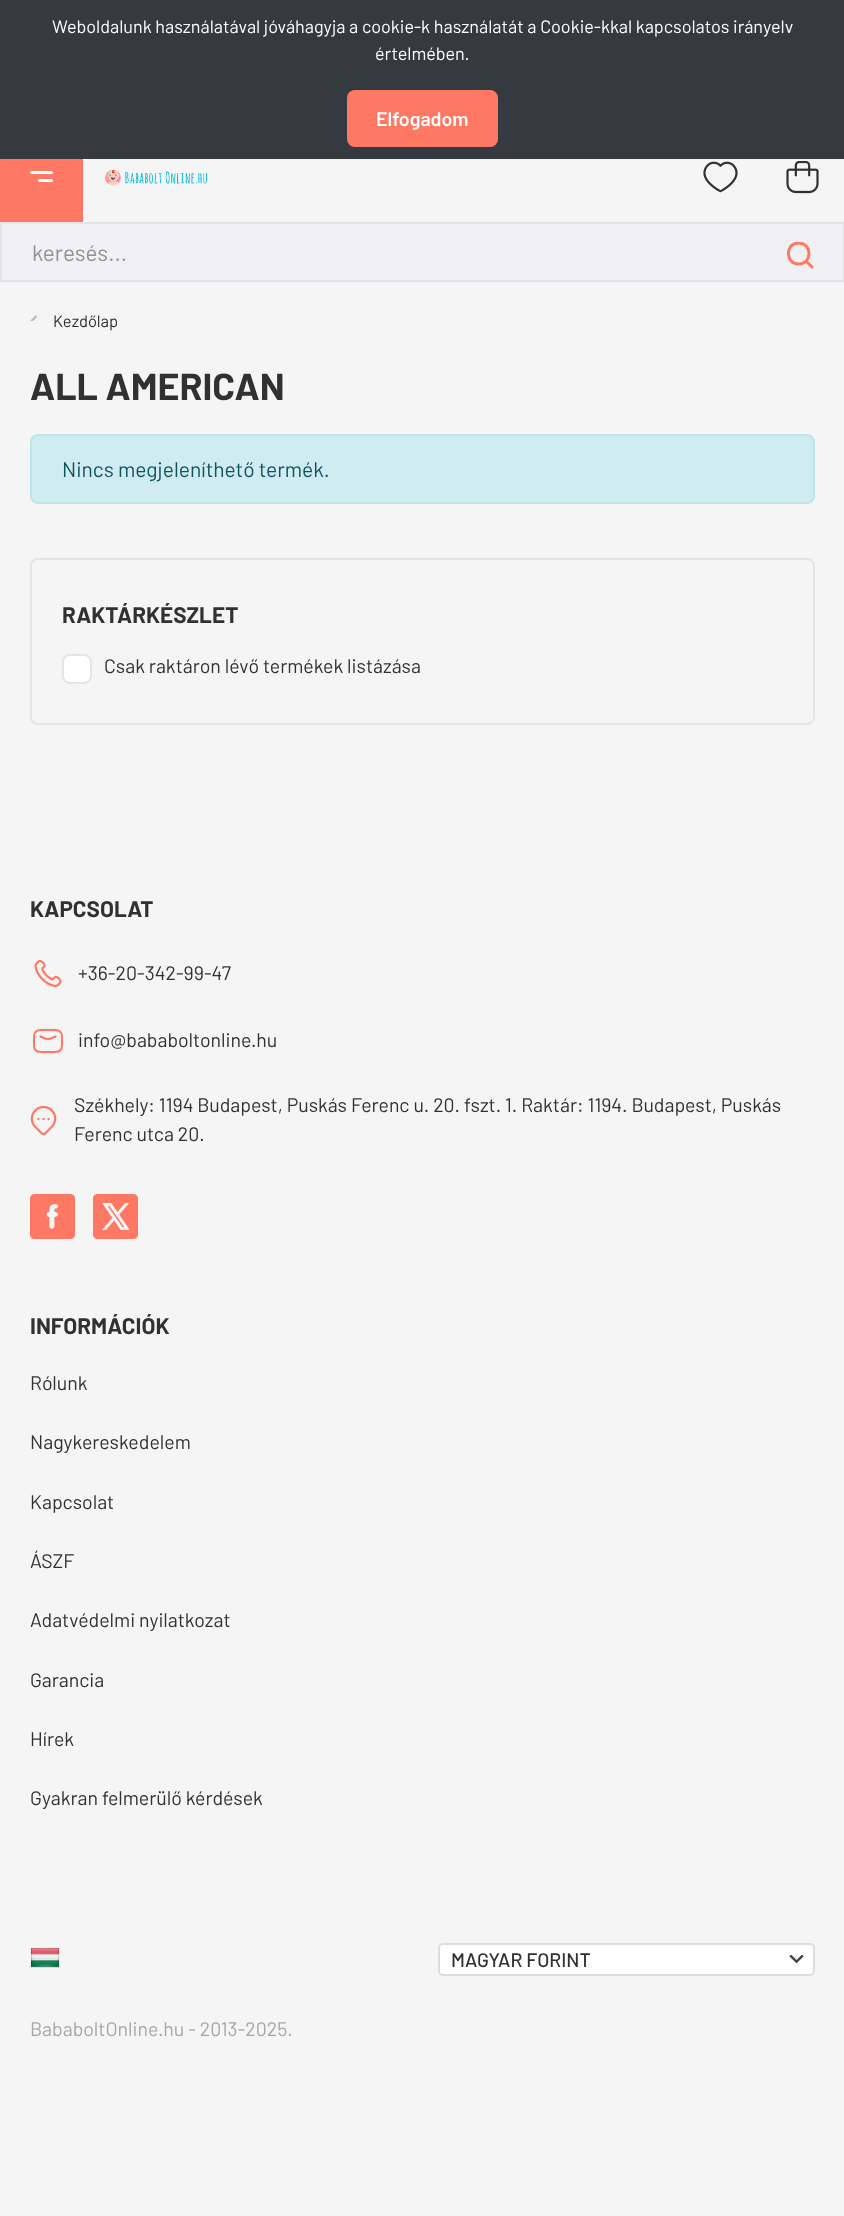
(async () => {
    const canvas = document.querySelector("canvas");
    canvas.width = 844;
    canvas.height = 2216;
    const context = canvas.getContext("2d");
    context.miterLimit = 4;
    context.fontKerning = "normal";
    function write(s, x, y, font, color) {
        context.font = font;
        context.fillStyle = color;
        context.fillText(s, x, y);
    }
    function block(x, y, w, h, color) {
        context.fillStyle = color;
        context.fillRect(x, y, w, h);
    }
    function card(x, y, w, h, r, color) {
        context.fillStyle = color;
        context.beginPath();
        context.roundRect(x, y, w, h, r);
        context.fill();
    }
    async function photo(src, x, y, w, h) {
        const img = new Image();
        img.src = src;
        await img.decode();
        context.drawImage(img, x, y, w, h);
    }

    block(0, 0, 844, 2216, "rgb(245, 245, 245)");
    block(0, 0, 844, 159, "rgb(52, 58, 64)");
    write("Weboldalunk használatával jóváhagyja a cookie-k használatát a Cookie-kkal kapcsolatos irányelv", 52, 33, "18px Barlow", "rgb(255, 255, 255)");
    write("értelmében.", 375, 60, "18px Barlow", "rgb(255, 255, 255)");
    card(347, 90, 151, 57, 8, "rgb(255, 120, 100)");
    write("Elfogadom", 376, 126, "600 19.5px Barlow", "rgb(255, 255, 255)");
    block(0, 159, 83, 63, "rgb(255, 120, 100)");
    card(30, 171, 23, 3, 1.5, "rgb(255, 255, 255)");
    card(38, 179, 15, 3, 1.5, "rgb(255, 255, 255)");
    await photo("media/1.png", 105, 169, 102, 17);
    await photo("media/2.png", 703, 161, 35, 32);
    await photo("media/3.png", 786, 161, 33, 33);
    context.fillStyle = "rgb(241, 241, 244)";
    context.beginPath();
    context.rect(1, 223, 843, 58);
    context.fill();
    context.strokeStyle = "rgb(228, 228, 234)";
    context.lineWidth = 2;
    context.stroke();
    write("keresés...", 32, 261, "22.5px Barlow", "rgb(144, 145, 147)");
    context.save();
    context.beginPath();
    context.rect(786, 242, 29, 27);
    context.clip();
    context.beginPath();
    context.moveTo(812, 267);
    context.lineTo(806, 261);
    context.moveTo(798.5, 264);
    context.bezierCurveTo(785, 264, 785, 243, 798.5, 243);
    context.bezierCurveTo(812.5, 243, 812.5, 264, 798.5, 264);
    context.closePath();
    context.strokeStyle = "rgb(255, 120, 100)";
    context.lineWidth = 3;
    context.lineCap = "round";
    context.lineJoin = "round";
    context.stroke();
    context.restore();
    await photo("media/4.png", 30, 315, 7, 6);
    write("Kezdőlap", 53, 327, "16.5px Barlow", "rgb(47, 49, 50)");
    write("ALL AMERICAN", 30, 400, "bold 37.5px Barlow", "rgb(47, 49, 50)");
    context.fillStyle = "rgb(209, 236, 241)";
    context.beginPath();
    context.roundRect(31, 435, 783, 68, 7);
    context.fill();
    context.strokeStyle = "rgb(190, 229, 235)";
    context.stroke();
    write("Nincs megjeleníthető termék.", 62, 477, "21px Barlow", "rgb(12, 84, 96)");
    context.beginPath();
    context.roundRect(31, 559, 783, 165, 7);
    context.strokeStyle = "rgb(228, 228, 234)";
    context.stroke();
    write("RAKTÁRKÉSZLET", 62, 623, "bold 22.5px Barlow", "rgb(47, 49, 50)");
    context.fillStyle = "rgb(255, 255, 255)";
    context.beginPath();
    context.roundRect(63, 655, 28, 28, 7);
    context.fill();
    context.stroke();
    write("Csak raktáron lévő termékek listázása", 104, 673, "19.5px Barlow", "rgb(47, 49, 50)");
    write("KAPCSOLAT", 30, 917, "bold 22.5px Barlow", "rgb(47, 49, 50)");
    await photo("media/5.png", 34, 960, 28, 27);
    write("+36-20-342-99-47", 78, 980, "19.5px Barlow", "rgb(47, 49, 50)");
    context.beginPath();
    context.roundRect(34, 1030, 28, 22, 6);
    context.strokeStyle = "rgb(255, 120, 100)";
    context.stroke();
    context.beginPath();
    context.moveTo(40.5, 1036.5);
    context.bezierCurveTo(49, 1040, 47, 1040, 55.5, 1036.5);
    context.lineWidth = 2.2;
    context.lineCap = "round";
    context.lineJoin = "round";
    context.stroke();
    write("info@bababoltonline.hu", 78, 1047, "19.5px Barlow", "rgb(47, 49, 50)");
    await photo("media/6.png", 30, 1106, 27, 30);
    write("Székhely: 1194 Budapest, Puskás Ferenc u. 20. fszt. 1. Raktár: 1194. Budapest, Puskás", 74, 1112, "19.5px Barlow", "rgb(47, 49, 50)");
    write("Ferenc utca 20.", 74, 1141, "19.5px Barlow", "rgb(47, 49, 50)");
    await photo("media/7.png", 30, 1194, 45, 45);
    await photo("media/8.png", 93, 1194, 45, 45);
    write("INFORMÁCIÓK", 30, 1334, "bold 22.5px Barlow", "rgb(47, 49, 50)");
    write("Rólunk", 30, 1390, "19.5px Barlow", "rgb(47, 49, 50)");
    write("Nagykereskedelem", 30, 1449, "19.5px Barlow", "rgb(47, 49, 50)");
    write("Kapcsolat", 30, 1509, "19.5px Barlow", "rgb(47, 49, 50)");
    write("ÁSZF", 30, 1568, "19.5px Barlow", "rgb(47, 49, 50)");
    write("Adatvédelmi nyilatkozat", 30, 1627, "19.5px Barlow", "rgb(47, 49, 50)");
    write("Garancia", 30, 1687, "19.5px Barlow", "rgb(47, 49, 50)");
    write("Hírek", 30, 1746, "19.5px Barlow", "rgb(47, 49, 50)");
    write("Gyakran felmerülő kérdések", 30, 1805, "19.5px Barlow", "rgb(47, 49, 50)");
    await photo("media/9.png", 30, 1948, 30, 20);
    card(438, 1943, 377, 33, 5, "rgb(255, 255, 255)");
    await photo("media/10.png", 789, 1955, 15, 9);
    context.beginPath();
    context.roundRect(439, 1944, 375, 31, 4);
    context.strokeStyle = "rgb(221, 221, 225)";
    context.lineWidth = 2;
    context.lineJoin = "miter";
    context.stroke();
    write("MAGYAR FORINT", 451, 1967, "500 19.5px Barlow", "rgb(47, 49, 50)");
    write("BababoltOnline.hu - 2013-2025.", 30, 2036, "19.5px Barlow", "rgb(167, 167, 169)");
})();
